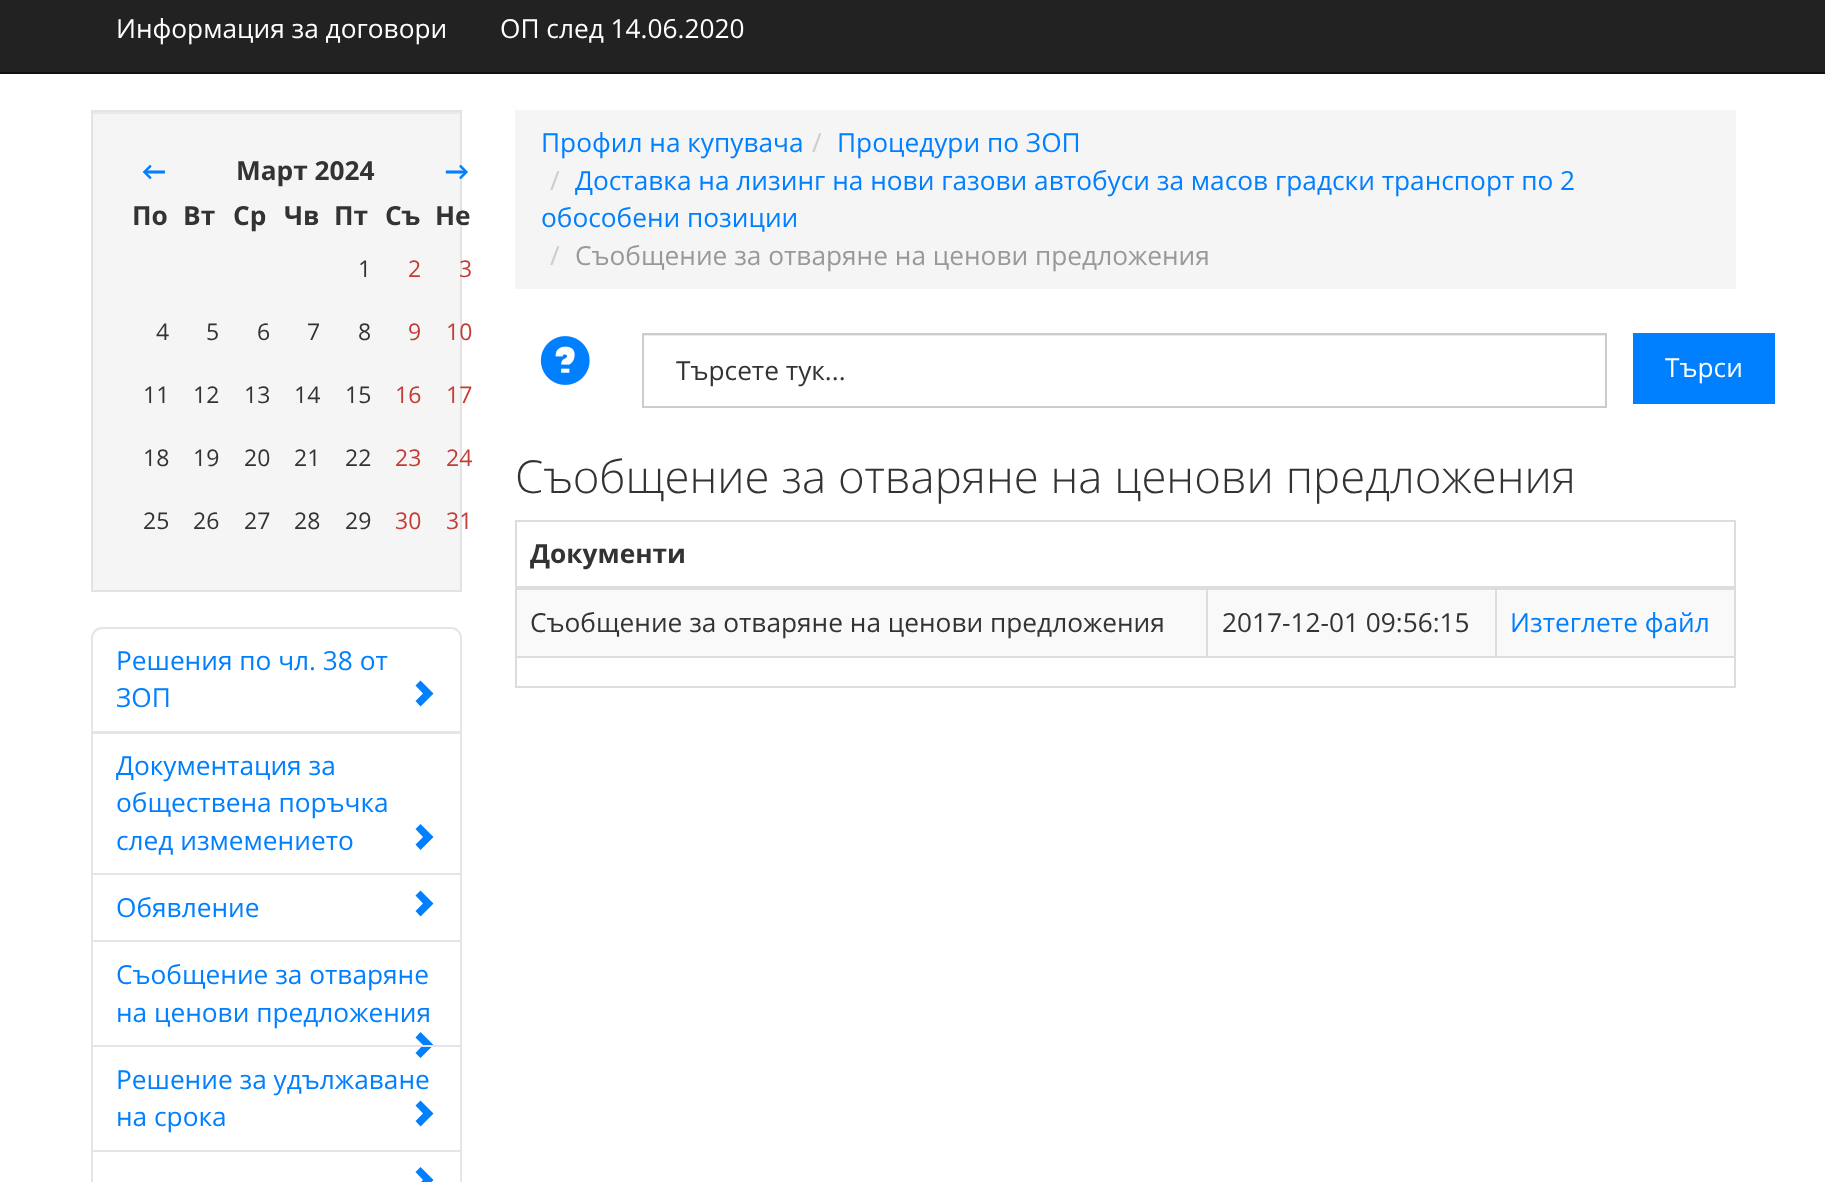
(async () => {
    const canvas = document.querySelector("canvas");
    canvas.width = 1825;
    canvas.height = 1182;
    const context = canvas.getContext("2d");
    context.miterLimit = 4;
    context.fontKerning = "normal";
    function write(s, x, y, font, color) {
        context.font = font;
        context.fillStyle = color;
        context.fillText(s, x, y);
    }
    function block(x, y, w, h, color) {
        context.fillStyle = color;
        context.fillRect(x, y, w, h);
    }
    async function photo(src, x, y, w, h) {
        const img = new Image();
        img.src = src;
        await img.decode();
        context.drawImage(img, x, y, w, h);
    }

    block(0, 0, 1825, 1182, "rgb(255, 255, 255)");
    block(0, 0, 1825, 72, "rgb(34, 34, 34)");
    block(0, 72, 1825, 2, "rgb(18, 18, 18)");
    write("Информация за договори", 116, 38, "26.25px Open Sans", "rgb(255, 255, 255)");
    write("ОП след 14.06.2020", 500, 38, "26.25px Open Sans", "rgb(255, 255, 255)");
    block(93, 114, 367, 476, "rgb(245, 245, 245)");
    block(93, 112, 367, 2, "rgb(233, 233, 233)");
    context.strokeStyle = "rgb(227, 227, 227)";
    context.lineWidth = 2;
    context.strokeRect(92, 111, 369, 480);
    write("←", 142, 180, "bold 26.25px Carlito", "rgb(0, 127, 255)");
    write("Март 2024", 236, 180, "bold 26.25px Open Sans", "rgb(51, 51, 51)");
    write("→", 445, 180, "bold 26.25px Carlito", "rgb(0, 127, 255)");
    write("По", 132, 225, "bold 26.25px Open Sans", "rgb(51, 51, 51)");
    write("Вт", 183, 225, "bold 26.25px Open Sans", "rgb(51, 51, 51)");
    write("Ср", 233, 225, "bold 26.25px Open Sans", "rgb(51, 51, 51)");
    write("Чв", 284, 225, "bold 26.25px Open Sans", "rgb(51, 51, 51)");
    write("Пт", 334, 225, "bold 26.25px Open Sans", "rgb(51, 51, 51)");
    write("Съ", 385, 225, "bold 26.25px Open Sans", "rgb(51, 51, 51)");
    write("Не", 435, 225, "bold 26.25px Open Sans", "rgb(51, 51, 51)");
    write("1", 358, 277, "23px Open Sans", "rgb(51, 51, 51)");
    write("2", 408, 277, "23px Open Sans", "rgb(196, 60, 53)");
    write("3", 459, 277, "23px Open Sans", "rgb(196, 60, 53)");
    write("4", 156, 340, "23px Open Sans", "rgb(51, 51, 51)");
    write("5", 206, 340, "23px Open Sans", "rgb(51, 51, 51)");
    write("6", 257, 340, "23px Open Sans", "rgb(51, 51, 51)");
    write("7", 307, 340, "23px Open Sans", "rgb(51, 51, 51)");
    write("8", 358, 340, "23px Open Sans", "rgb(51, 51, 51)");
    write("9", 408, 340, "23px Open Sans", "rgb(196, 60, 53)");
    write("10", 446, 340, "23px Open Sans", "rgb(196, 60, 53)");
    write("11", 143, 403, "23px Open Sans", "rgb(51, 51, 51)");
    write("12", 193, 403, "23px Open Sans", "rgb(51, 51, 51)");
    write("13", 244, 403, "23px Open Sans", "rgb(51, 51, 51)");
    write("14", 294, 403, "23px Open Sans", "rgb(51, 51, 51)");
    write("15", 345, 403, "23px Open Sans", "rgb(51, 51, 51)");
    write("16", 395, 403, "23px Open Sans", "rgb(196, 60, 53)");
    write("17", 446, 403, "23px Open Sans", "rgb(196, 60, 53)");
    write("18", 143, 466, "23px Open Sans", "rgb(51, 51, 51)");
    write("19", 193, 466, "23px Open Sans", "rgb(51, 51, 51)");
    write("20", 244, 466, "23px Open Sans", "rgb(51, 51, 51)");
    write("21", 294, 466, "23px Open Sans", "rgb(51, 51, 51)");
    write("22", 345, 466, "23px Open Sans", "rgb(51, 51, 51)");
    write("23", 395, 466, "23px Open Sans", "rgb(196, 60, 53)");
    write("24", 446, 466, "23px Open Sans", "rgb(196, 60, 53)");
    write("25", 143, 529, "23px Open Sans", "rgb(51, 51, 51)");
    write("26", 193, 529, "23px Open Sans", "rgb(51, 51, 51)");
    write("27", 244, 529, "23px Open Sans", "rgb(51, 51, 51)");
    write("28", 294, 529, "23px Open Sans", "rgb(51, 51, 51)");
    write("29", 345, 529, "23px Open Sans", "rgb(51, 51, 51)");
    write("30", 395, 529, "23px Open Sans", "rgb(196, 60, 53)");
    write("31", 446, 529, "23px Open Sans", "rgb(196, 60, 53)");
    context.beginPath();
    context.roundRect(92, 628, 369, 104, [10, 10, 0, 0]);
    context.strokeStyle = "rgb(229, 229, 229)";
    context.stroke();
    write("Решения по чл. 38 от", 116, 670, "26.25px Open Sans", "rgb(0, 127, 255)");
    write("ЗОП", 116, 707, "26.25px Open Sans", "rgb(0, 127, 255)");
    context.beginPath();
    context.moveTo(415.5, 701);
    context.lineTo(423, 693.5);
    context.lineTo(415.5, 685.5);
    context.lineTo(420.5, 680.5);
    context.lineTo(433.5, 693.5);
    context.lineTo(420.5, 706.5);
    context.closePath();
    context.fill();
    context.strokeRect(92, 733, 369, 141);
    write("Документация за", 116, 775, "26.25px Open Sans", "rgb(0, 127, 255)");
    write("обществена поръчка", 116, 812, "26.25px Open Sans", "rgb(0, 127, 255)");
    write("след измемението", 116, 850, "26.25px Open Sans", "rgb(0, 127, 255)");
    context.beginPath();
    context.moveTo(415.5, 844.5);
    context.lineTo(423, 837);
    context.lineTo(415.5, 829);
    context.lineTo(420.5, 824);
    context.lineTo(433.5, 837);
    context.lineTo(420.5, 850);
    context.closePath();
    context.fill();
    context.strokeRect(92, 874, 369, 67);
    write("Обявление", 116, 917, "26.25px Open Sans", "rgb(0, 127, 255)");
    context.beginPath();
    context.moveTo(415.5, 911);
    context.lineTo(423, 903.5);
    context.lineTo(415.5, 895.5);
    context.lineTo(420.5, 890.5);
    context.lineTo(433.5, 903.5);
    context.lineTo(420.5, 916.5);
    context.closePath();
    context.fill();
    context.strokeRect(92, 941, 369, 105);
    write("Съобщение за отваряне", 116, 984, "26.25px Open Sans", "rgb(0, 127, 255)");
    write("на ценови предложения", 116, 1022, "26.25px Open Sans", "rgb(0, 127, 255)");
    context.beginPath();
    context.moveTo(415.5, 1053);
    context.lineTo(423, 1045);
    context.lineTo(415.5, 1037.5);
    context.lineTo(420.5, 1032);
    context.lineTo(433.5, 1045);
    context.lineTo(420.5, 1058);
    context.closePath();
    context.fill();
    context.strokeRect(92, 1046, 369, 105);
    write("Решение за удължаване", 116, 1089, "26.25px Open Sans", "rgb(0, 127, 255)");
    write("на срока", 116, 1126, "26.25px Open Sans", "rgb(0, 127, 255)");
    context.beginPath();
    context.moveTo(415.5, 1121);
    context.lineTo(423, 1113.5);
    context.lineTo(415.5, 1105.5);
    context.lineTo(420.5, 1100.5);
    context.lineTo(433.5, 1113.5);
    context.lineTo(420.5, 1126.5);
    context.closePath();
    context.fill();
    context.strokeRect(92, 1151, 369, 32);
    context.beginPath();
    context.moveTo(415.5, 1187.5);
    context.lineTo(423, 1180);
    context.lineTo(415.5, 1172);
    context.lineTo(420.5, 1167);
    context.lineTo(433.5, 1180);
    context.lineTo(420.5, 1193);
    context.closePath();
    context.fill();
    block(515, 110, 1221, 179, "rgb(245, 245, 245)");
    write("Профил на купувача", 541, 152, "26.25px Open Sans", "rgb(0, 127, 255)");
    write("/", 812, 152, "26.25px Open Sans", "rgb(204, 204, 204)");
    write("Процедури по ЗОП", 837, 152, "26.25px Open Sans", "rgb(0, 127, 255)");
    write("/", 550, 190, "26.25px Open Sans", "rgb(204, 204, 204)");
    write("Доставка на лизинг на нови газови автобуси за масов градски транспорт по 2", 575, 190, "26.25px Open Sans", "rgb(0, 127, 255)");
    write("обособени позиции", 541, 227, "26.25px Open Sans", "rgb(0, 127, 255)");
    write("/", 550, 265, "26.25px Open Sans", "rgb(204, 204, 204)");
    write("Съобщение за отваряне на ценови предложения", 575, 265, "26.25px Open Sans", "rgb(153, 153, 153)");
    await photo("media/1.png", 540, 336, 50, 49);
    block(644, 335, 961, 1, "rgb(236, 236, 236)");
    context.strokeStyle = "rgb(204, 204, 204)";
    context.strokeRect(643, 334, 963, 73);
    write("Търсете тук...", 676, 380, "26.25px Open Sans", "rgb(51, 51, 51)");
    block(1633, 333, 142, 71, "rgb(0, 127, 255)");
    write("Търси", 1665, 377, "26.25px Open Sans", "rgb(255, 255, 255)");
    write("Съобщение за отваряне на ценови предложения", 515, 493, "300 45.5px Open Sans", "rgb(51, 51, 51)");
    block(515, 520, 1221, 2, "rgb(221, 221, 221)");
    block(1734, 520, 2, 168, "rgb(221, 221, 221)");
    block(515, 686, 1221, 2, "rgb(221, 221, 221)");
    block(515, 520, 2, 168, "rgb(221, 221, 221)");
    block(515, 656, 1221, 2, "rgb(221, 221, 221)");
    block(1206, 588, 2, 70, "rgb(221, 221, 221)");
    block(1495, 588, 2, 70, "rgb(221, 221, 221)");
    block(515, 586, 1221, 4, "rgb(221, 221, 221)");
    write("Документи", 530, 563, "bold 26.25px Open Sans", "rgb(51, 51, 51)");
    block(517, 590, 689, 66, "rgb(249, 249, 249)");
    write("Съобщение за отваряне на ценови предложения", 530, 632, "26.25px Open Sans", "rgb(51, 51, 51)");
    block(1208, 590, 287, 66, "rgb(249, 249, 249)");
    write("2017-12-01 09:56:15", 1222, 632, "26.25px Open Sans", "rgb(51, 51, 51)");
    block(1497, 590, 237, 66, "rgb(249, 249, 249)");
    write("Изтеглете файл", 1510, 632, "26.25px Open Sans", "rgb(0, 127, 255)");
})();
